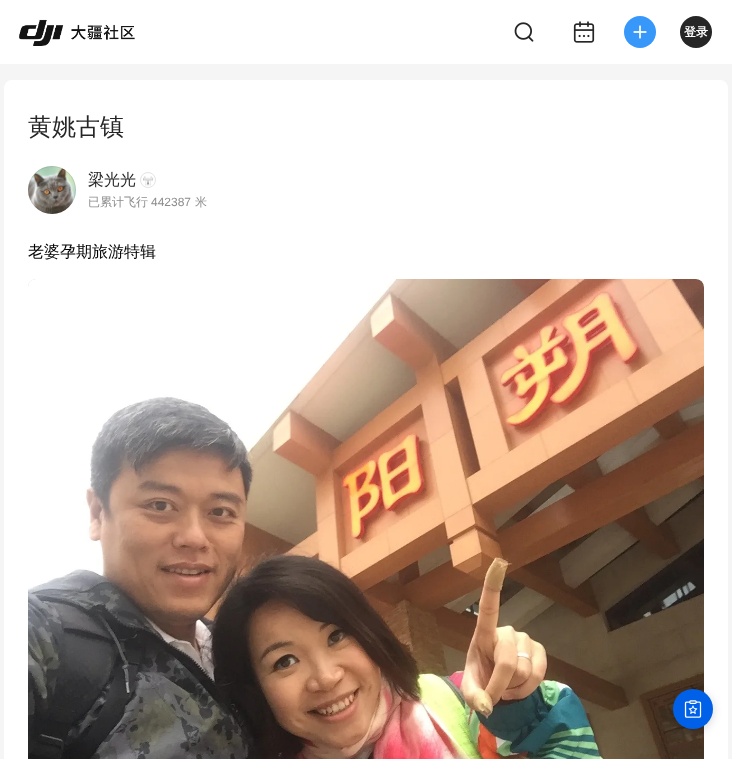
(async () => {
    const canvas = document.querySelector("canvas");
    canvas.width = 732;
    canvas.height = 759;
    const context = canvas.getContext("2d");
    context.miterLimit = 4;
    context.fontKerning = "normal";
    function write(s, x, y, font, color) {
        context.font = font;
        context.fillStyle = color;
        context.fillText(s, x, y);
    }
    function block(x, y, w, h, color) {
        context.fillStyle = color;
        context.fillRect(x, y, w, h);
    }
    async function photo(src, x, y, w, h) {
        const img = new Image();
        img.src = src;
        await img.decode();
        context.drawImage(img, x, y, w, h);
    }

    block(0, 0, 732, 759, "rgb(245, 245, 245)");
    block(0, 0, 732, 64, "rgb(255, 255, 255)");
    await photo("media/1.png", 19, 19, 116, 27);
    await photo("media/2.png", 514, 22, 20, 20);
    await photo("media/3.png", 573, 21, 22, 22);
    context.fillStyle = "rgb(55, 152, 250)";
    context.beginPath();
    context.arc(640, 32, 16, 0, Math.PI * 2);
    context.fill();
    await photo("media/4.png", 633, 25, 14, 14);
    context.fillStyle = "rgb(38, 38, 38)";
    context.beginPath();
    context.arc(696, 32, 16, 0, Math.PI * 2);
    context.fill();
    write("登录", 684, 36, "bold 12px WenQuanYi Zen Hei", "rgb(255, 255, 255)");
    context.beginPath();
    context.roundRect(4, 80, 724, 679, [8, 8, 0, 0]);
    context.fill();
    write("黄姚古镇", 28, 135, "500 24px WenQuanYi Zen Hei", "rgb(38, 38, 38)");
    await photo("media/5.png", 28, 166, 48, 48);
    context.beginPath();
    context.arc(52, 190, 23.5, 0, Math.PI * 2);
    context.strokeStyle = "rgba(0, 0, 0, 0.08)";
    context.stroke();
    write("梁光光", 88, 185, "500 16px WenQuanYi Zen Hei", "rgb(38, 38, 38)");
    context.beginPath();
    context.arc(148, 180, 7.5, 0, Math.PI * 2);
    context.strokeStyle = "rgb(228, 228, 228)";
    context.stroke();
    await photo("media/6.png", 143, 176, 11, 10);
    write("已累计飞行", 88, 206, "500 12px WenQuanYi Zen Hei", "rgb(140, 140, 140)");
    write("442387", 151, 206, "12px Liberation Sans", "rgb(140, 140, 140)");
    write("米", 195, 206, "500 12px WenQuanYi Zen Hei", "rgb(140, 140, 140)");
    write("老婆孕期旅游特辑", 28, 257, "500 16px WenQuanYi Zen Hei", "rgb(0, 0, 0)");
    context.fillStyle = "rgb(240, 240, 240)";
    context.beginPath();
    context.roundRect(28, 279, 676, 480, [8, 8, 0, 0]);
    context.fill();
    context.fillStyle = "rgba(0, 0, 0, 0.08)";
    context.beginPath();
    context.moveTo(36, 279);
    context.lineTo(696, 279);
    context.bezierCurveTo(700, 279, 704, 283, 704, 287);
    context.lineTo(704, 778);
    context.bezierCurveTo(704, 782, 700, 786, 696, 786);
    context.lineTo(36, 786);
    context.bezierCurveTo(32, 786, 28, 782, 28, 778);
    context.lineTo(28, 287);
    context.bezierCurveTo(28, 283, 32, 279, 36, 279);
    context.closePath();
    context.fill();
    await photo("media/7.png", 28, 279, 676, 480);
    context.fillStyle = "rgba(0, 0, 0, 0.16)";
    context.filter = "blur(5px)";
    context.beginPath();
    context.roundRect(673, 691, 40, 40, 20);
    context.fill();
    context.filter = "none";
    context.fillStyle = "rgb(0, 96, 231)";
    context.beginPath();
    context.arc(693, 709, 20, 0, Math.PI * 2);
    context.fill();
    await photo("media/8.png", 684, 700, 18, 18);
})();
